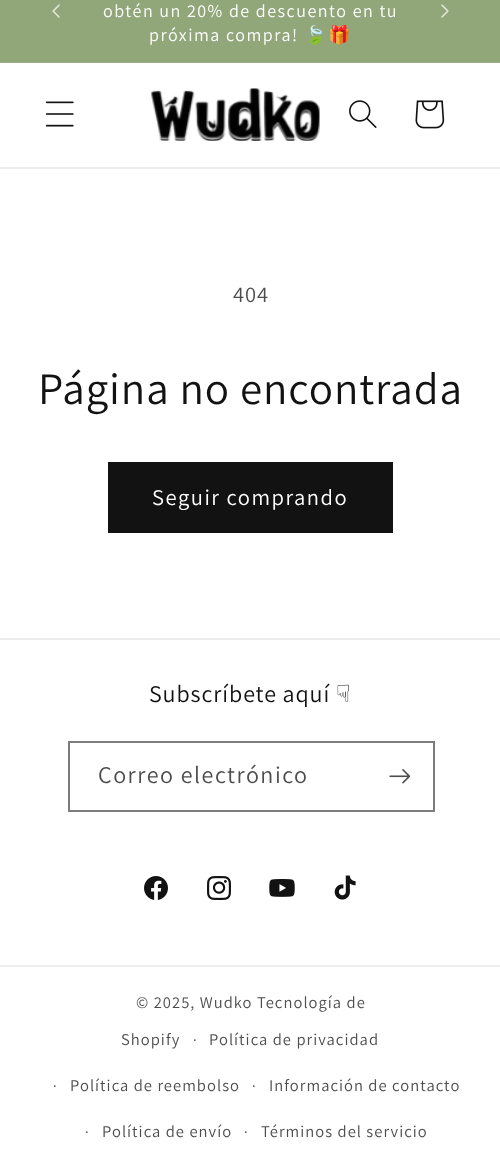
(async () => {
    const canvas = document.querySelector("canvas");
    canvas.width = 500;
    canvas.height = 1158;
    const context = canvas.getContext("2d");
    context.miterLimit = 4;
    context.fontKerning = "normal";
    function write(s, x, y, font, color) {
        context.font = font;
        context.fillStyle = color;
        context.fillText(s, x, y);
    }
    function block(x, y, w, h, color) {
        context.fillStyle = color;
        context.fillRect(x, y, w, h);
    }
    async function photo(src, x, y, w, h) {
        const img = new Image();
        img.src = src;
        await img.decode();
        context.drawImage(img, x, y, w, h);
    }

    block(0, 0, 500, 1158, "rgb(255, 255, 255)");
    block(0, 0, 500, 62, "rgb(145, 166, 121)");
    block(0, 62, 500, 1, "rgb(154, 173, 132)");
    await photo("media/1.png", 52, 4, 8, 14);
    context.letterSpacing = "1.5px";
    write("obtén un 20% de descuento en tu", 103, 17, "18px Assistant", "rgb(255, 255, 255)");
    write("próxima compra!", 149, 41, "18px Assistant", "rgb(255, 255, 255)");
    write("🍃🎁", 304, 41, "18px Noto Color Emoji", "rgb(255, 255, 255)");
    await photo("media/2.png", 441, 4, 8, 14);
    block(0, 167, 500, 2, "rgb(236, 236, 236)");
    await photo("media/3.png", 45, 101, 29, 26);
    await photo("media/4.png", 151, 88, 169, 53);
    await photo("media/5.png", 349, 100, 28, 28);
    await photo("media/6.png", 415, 100, 30, 29);
    context.letterSpacing = "0.9px";
    write("404", 233, 302, "22.5px Assistant", "rgb(77, 77, 77)");
    write("Página no encontrada", 38, 404, "45px Assistant", "rgb(18, 18, 18)");
    block(108, 462, 285, 71, "rgb(18, 18, 18)");
    context.letterSpacing = "1.5px";
    write("Seguir comprando", 152, 505, "22.5px Assistant", "rgb(255, 255, 255)");
    block(0, 638, 500, 2, "rgb(236, 236, 236)");
    context.letterSpacing = "0.9px";
    write("Subscríbete aquí", 149, 702, "24px Assistant", "rgb(18, 18, 18)");
    write("☟", 336, 702, "24px DejaVu Sans", "rgb(18, 18, 18)");
    context.strokeStyle = "rgb(125, 125, 125)";
    context.lineWidth = 2;
    context.strokeRect(69, 742, 365, 69);
    context.letterSpacing = "1.5px";
    write("Correo electrónico", 98, 783, "24px Assistant", "rgb(77, 77, 77)");
    await photo("media/7.png", 389, 769, 22, 15);
    await photo("media/8.png", 144, 876, 24, 24);
    await photo("media/9.png", 207, 876, 24, 24);
    await photo("media/10.png", 269, 879, 26, 18);
    await photo("media/11.png", 334, 875, 22, 25);
    block(0, 965, 500, 2, "rgb(236, 236, 236)");
    context.letterSpacing = "1.05px";
    write("© 2025, Wudko Tecnología de", 136, 1008, "16.5px Assistant", "rgb(77, 77, 77)");
    write("·", 193, 1045, "15px Assistant", "rgb(77, 77, 77)");
    write("Política de privacidad", 209, 1045, "16.5px Assistant", "rgb(77, 77, 77)");
    write("·", 53, 1091, "15px Assistant", "rgb(77, 77, 77)");
    write("Política de reembolso", 70, 1091, "16.5px Assistant", "rgb(77, 77, 77)");
    write("·", 252, 1091, "15px Assistant", "rgb(77, 77, 77)");
    write("Información de contacto", 269, 1091, "16.5px Assistant", "rgb(77, 77, 77)");
    write("·", 85, 1137, "15px Assistant", "rgb(77, 77, 77)");
    write("Política de envío", 102, 1137, "16.5px Assistant", "rgb(77, 77, 77)");
    write("·", 244, 1137, "15px Assistant", "rgb(77, 77, 77)");
    write("Términos del servicio", 261, 1137, "16.5px Assistant", "rgb(77, 77, 77)");
    write("Shopify", 121, 1045, "16.5px Assistant", "rgb(77, 77, 77)");
})();
